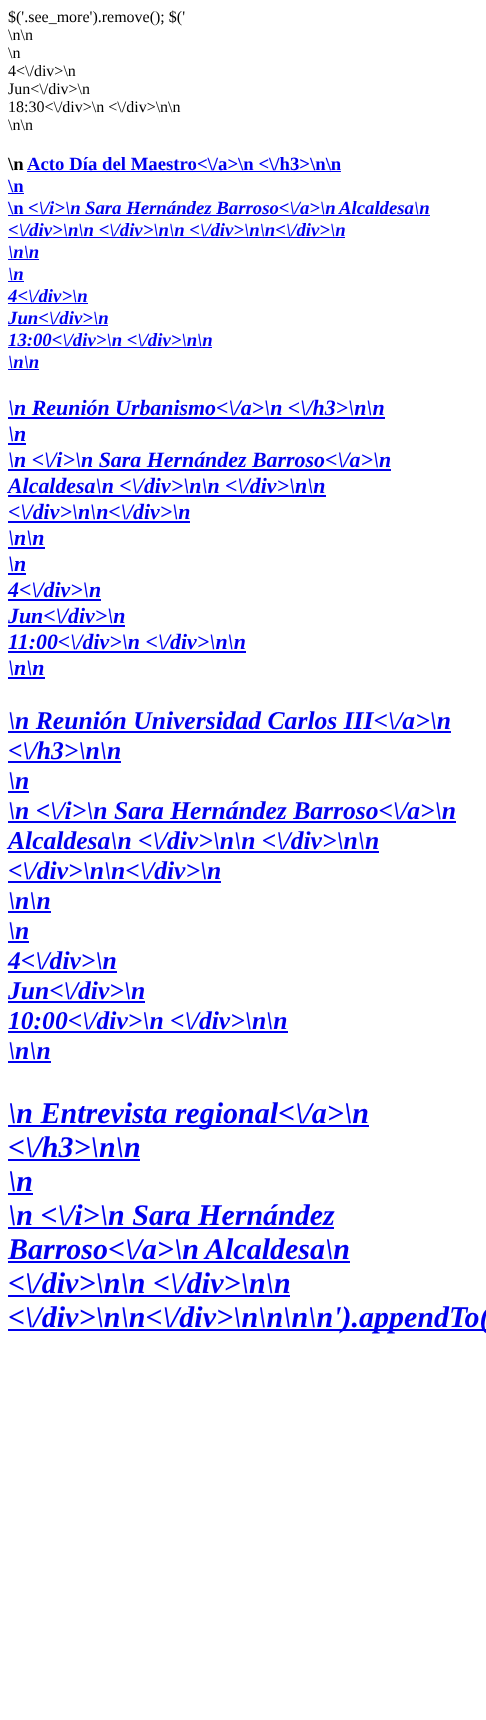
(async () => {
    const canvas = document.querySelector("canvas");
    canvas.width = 486;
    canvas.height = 1720;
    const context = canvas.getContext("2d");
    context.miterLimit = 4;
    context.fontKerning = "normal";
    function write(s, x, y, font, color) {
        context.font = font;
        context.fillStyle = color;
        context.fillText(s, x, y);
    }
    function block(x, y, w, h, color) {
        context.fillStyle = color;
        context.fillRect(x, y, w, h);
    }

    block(0, 0, 486, 1720, "rgb(255, 255, 255)");
    write("$('.see_more').remove(); $('", 8, 22, "16px Liberation Serif", "rgb(0, 0, 0)");
    write("\\n\\n", 8, 40, "16px Liberation Serif", "rgb(0, 0, 0)");
    write("\\n", 8, 58, "16px Liberation Serif", "rgb(0, 0, 0)");
    write("4<\\/div>\\n", 8, 76, "16px Liberation Serif", "rgb(0, 0, 0)");
    write("Jun<\\/div>\\n", 8, 94, "16px Liberation Serif", "rgb(0, 0, 0)");
    write("18:30<\\/div>\\n <\\/div>\\n\\n", 8, 112, "16px Liberation Serif", "rgb(0, 0, 0)");
    write("\\n\\n", 8, 130, "16px Liberation Serif", "rgb(0, 0, 0)");
    write("\\n", 8, 170, "bold 18.75px Liberation Serif", "rgb(0, 0, 0)");
    write("Acto Día del Maestro<\\/a>\\n <\\/h3>\\n\\n", 27, 170, "bold 18.75px Liberation Serif", "rgb(0, 0, 238)");
    block(27, 171, 314, 1, "rgb(0, 0, 238)");
    write("\\n", 8, 192, "bold 18.75px Liberation Serif", "rgb(0, 0, 238)");
    block(8, 193, 16, 1, "rgb(0, 0, 238)");
    write("Sara Hernández Barroso<\\/a>\\n", 85, 214, "italic bold 18.75px Liberation Serif", "rgb(0, 0, 238)");
    write("Alcaldesa\\n", 339, 214, "italic bold 18.75px Liberation Serif", "rgb(0, 0, 238)");
    write("<\\/div>\\n\\n <\\/div>\\n\\n <\\/div>\\n\\n<\\/div>\\n", 8, 236, "italic bold 18.75px Liberation Serif", "rgb(0, 0, 238)");
    block(8, 237, 337, 1, "rgb(0, 0, 238)");
    write("\\n\\n", 8, 258, "italic bold 18.75px Liberation Serif", "rgb(0, 0, 238)");
    block(8, 259, 31, 1, "rgb(0, 0, 238)");
    write("\\n", 8, 280, "italic bold 18.75px Liberation Serif", "rgb(0, 0, 238)");
    block(8, 281, 16, 1, "rgb(0, 0, 238)");
    write("4<\\/div>\\n", 8, 302, "italic bold 18.75px Liberation Serif", "rgb(0, 0, 238)");
    block(8, 303, 80, 1, "rgb(0, 0, 238)");
    write("Jun<\\/div>\\n", 8, 324, "italic bold 18.75px Liberation Serif", "rgb(0, 0, 238)");
    block(8, 325, 100, 1, "rgb(0, 0, 238)");
    write("13:00<\\/div>\\n <\\/div>\\n\\n", 8, 346, "italic bold 18.75px Liberation Serif", "rgb(0, 0, 238)");
    block(8, 347, 204, 1, "rgb(0, 0, 238)");
    write("\\n\\n", 8, 368, "italic bold 18.75px Liberation Serif", "rgb(0, 0, 238)");
    block(8, 369, 31, 1, "rgb(0, 0, 238)");
    write("\\n Reunión Urbanismo<\\/a>\\n <\\/h3>\\n\\n", 8, 415, "italic bold 21.9px Liberation Serif", "rgb(0, 0, 238)");
    block(8, 417, 377, 2, "rgb(0, 0, 238)");
    write("\\n", 8, 441, "italic bold 21.9px Liberation Serif", "rgb(0, 0, 238)");
    block(8, 443, 18, 2, "rgb(0, 0, 238)");
    write("\\n <\\/i>\\n Sara Hernández Barroso<\\/a>\\n", 8, 467, "italic bold 21.9px Liberation Serif", "rgb(0, 0, 238)");
    block(8, 469, 383, 2, "rgb(0, 0, 238)");
    write("Alcaldesa\\n <\\/div>\\n\\n <\\/div>\\n\\n", 8, 493, "italic bold 21.9px Liberation Serif", "rgb(0, 0, 238)");
    block(8, 495, 318, 2, "rgb(0, 0, 238)");
    write("<\\/div>\\n\\n<\\/div>\\n", 8, 519, "italic bold 21.9px Liberation Serif", "rgb(0, 0, 238)");
    block(8, 521, 182, 2, "rgb(0, 0, 238)");
    write("\\n\\n", 8, 545, "italic bold 21.9px Liberation Serif", "rgb(0, 0, 238)");
    block(8, 547, 37, 2, "rgb(0, 0, 238)");
    write("\\n", 8, 571, "italic bold 21.9px Liberation Serif", "rgb(0, 0, 238)");
    block(8, 573, 18, 2, "rgb(0, 0, 238)");
    write("4<\\/div>\\n", 8, 597, "italic bold 21.9px Liberation Serif", "rgb(0, 0, 238)");
    block(8, 599, 93, 2, "rgb(0, 0, 238)");
    write("Jun<\\/div>\\n", 8, 623, "italic bold 21.9px Liberation Serif", "rgb(0, 0, 238)");
    block(8, 625, 117, 2, "rgb(0, 0, 238)");
    write("11:00<\\/div>\\n <\\/div>\\n\\n", 8, 649, "italic bold 21.9px Liberation Serif", "rgb(0, 0, 238)");
    block(8, 651, 238, 2, "rgb(0, 0, 238)");
    write("\\n\\n", 8, 675, "italic bold 21.9px Liberation Serif", "rgb(0, 0, 238)");
    block(8, 677, 37, 2, "rgb(0, 0, 238)");
    write("\\n Reunión Universidad Carlos III<\\/a>\\n", 8, 729, "italic bold 25.6px Liberation Serif", "rgb(0, 0, 238)");
    block(8, 731, 443, 2, "rgb(0, 0, 238)");
    write("<\\/h3>\\n\\n", 8, 759, "italic bold 25.6px Liberation Serif", "rgb(0, 0, 238)");
    block(8, 761, 113, 2, "rgb(0, 0, 238)");
    write("\\n", 8, 789, "italic bold 25.6px Liberation Serif", "rgb(0, 0, 238)");
    block(8, 791, 21, 2, "rgb(0, 0, 238)");
    write("\\n <\\/i>\\n Sara Hernández Barroso<\\/a>\\n", 8, 819, "italic bold 25.6px Liberation Serif", "rgb(0, 0, 238)");
    block(8, 821, 448, 2, "rgb(0, 0, 238)");
    write("Alcaldesa\\n <\\/div>\\n\\n <\\/div>\\n\\n", 8, 849, "italic bold 25.6px Liberation Serif", "rgb(0, 0, 238)");
    block(8, 851, 371, 2, "rgb(0, 0, 238)");
    write("<\\/div>\\n\\n<\\/div>\\n", 8, 879, "italic bold 25.6px Liberation Serif", "rgb(0, 0, 238)");
    block(8, 881, 213, 2, "rgb(0, 0, 238)");
    write("\\n\\n", 8, 909, "italic bold 25.6px Liberation Serif", "rgb(0, 0, 238)");
    block(8, 911, 43, 2, "rgb(0, 0, 238)");
    write("\\n", 8, 939, "italic bold 25.6px Liberation Serif", "rgb(0, 0, 238)");
    block(8, 941, 21, 2, "rgb(0, 0, 238)");
    write("4<\\/div>\\n", 8, 969, "italic bold 25.6px Liberation Serif", "rgb(0, 0, 238)");
    block(8, 971, 109, 2, "rgb(0, 0, 238)");
    write("Jun<\\/div>\\n", 8, 999, "italic bold 25.6px Liberation Serif", "rgb(0, 0, 238)");
    block(8, 1001, 137, 2, "rgb(0, 0, 238)");
    write("10:00<\\/div>\\n <\\/div>\\n\\n", 8, 1029, "italic bold 25.6px Liberation Serif", "rgb(0, 0, 238)");
    block(8, 1031, 280, 2, "rgb(0, 0, 238)");
    write("\\n\\n", 8, 1059, "italic bold 25.6px Liberation Serif", "rgb(0, 0, 238)");
    block(8, 1061, 43, 2, "rgb(0, 0, 238)");
    block(8, 1125, 361, 2, "rgb(0, 0, 238)");
    write("\\n Entrevista regional<\\/a>\\n", 8, 1123, "italic bold 30px Liberation Serif", "rgb(0, 0, 238)");
    write("<\\/h3>\\n\\n", 8, 1157, "italic bold 30px Liberation Serif", "rgb(0, 0, 238)");
    block(8, 1159, 132, 2, "rgb(0, 0, 238)");
    write("\\n", 8, 1191, "italic bold 30px Liberation Serif", "rgb(0, 0, 238)");
    block(8, 1193, 25, 2, "rgb(0, 0, 238)");
    write("\\n <\\/i>\\n Sara Hernández", 8, 1225, "italic bold 30px Liberation Serif", "rgb(0, 0, 238)");
    block(8, 1227, 326, 2, "rgb(0, 0, 238)");
    write("Barroso<\\/a>\\n", 8, 1259, "italic bold 30px Liberation Serif", "rgb(0, 0, 238)");
    block(8, 1261, 342, 2, "rgb(0, 0, 238)");
    write("Alcaldesa\\n", 205, 1259, "italic bold 30px Liberation Serif", "rgb(0, 0, 238)");
    write("<\\/div>\\n\\n <\\/div>\\n\\n", 8, 1293, "italic bold 30px Liberation Serif", "rgb(0, 0, 238)");
    block(8, 1295, 282, 2, "rgb(0, 0, 238)");
    block(8, 1329, 478, 2, "rgb(0, 0, 238)");
    write("<\\/div>\\n\\n<\\/div>\\n\\n\\n\\n').appendTo(", 8, 1327, "italic bold 30px Liberation Serif", "rgb(0, 0, 238)");
    write("\\n", 8, 214, "bold 18.75px Liberation Serif", "rgb(0, 0, 238)");
    block(8, 215, 422, 1, "rgb(0, 0, 238)");
    write("<\\/i>\\n", 28, 214, "italic bold 18.75px Liberation Serif", "rgb(0, 0, 238)");
})();
